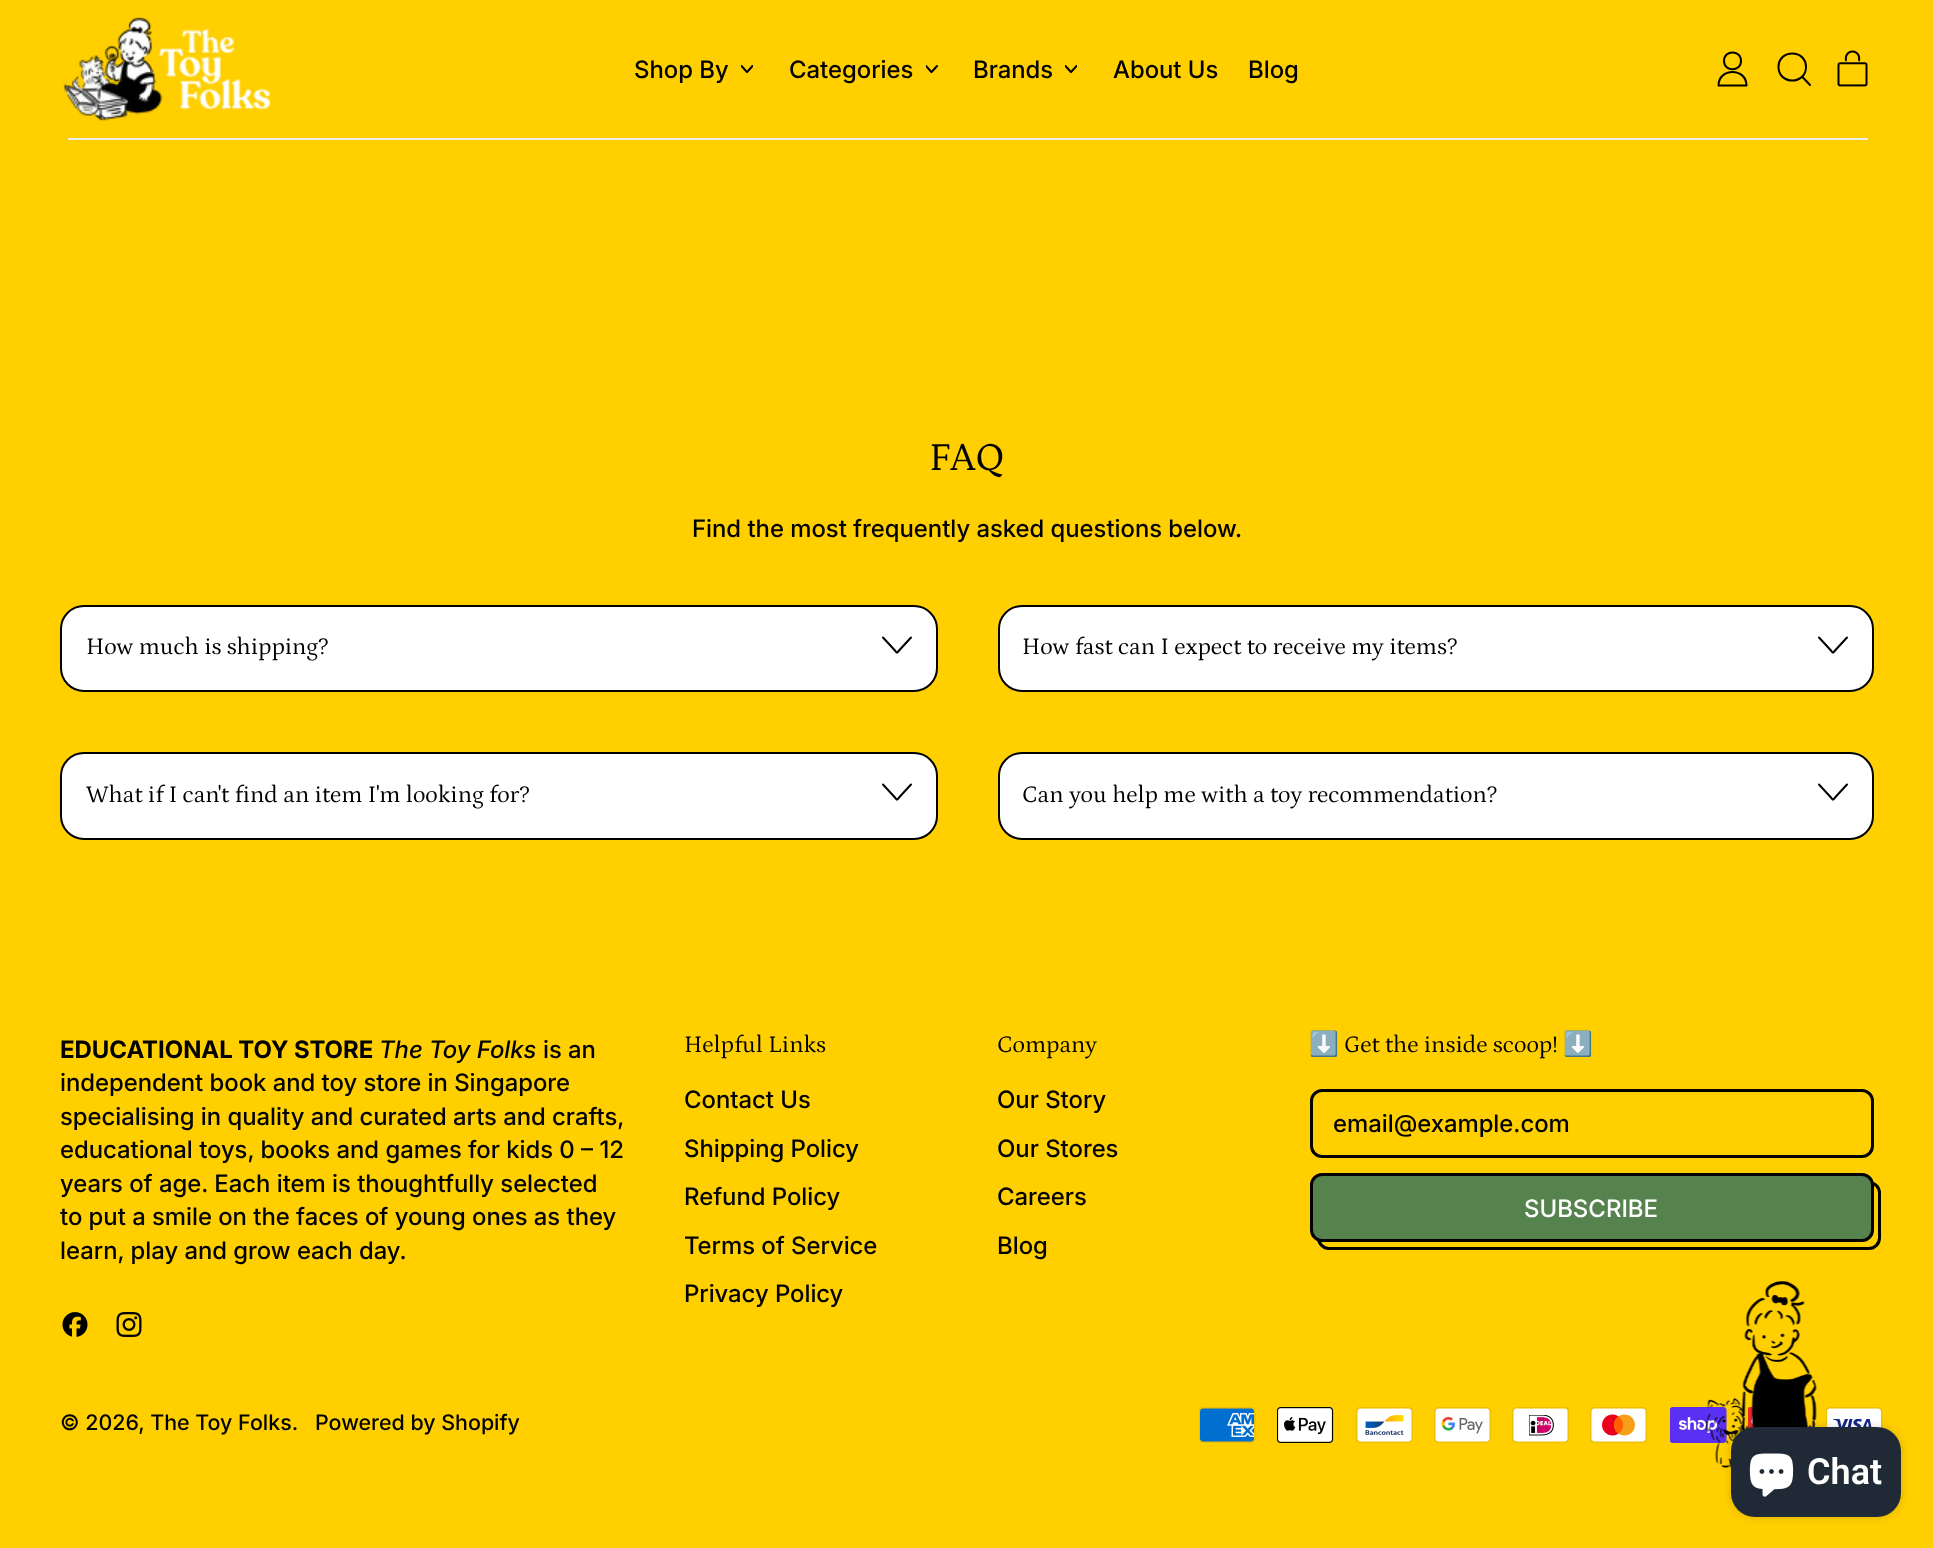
(async () => {
    const canvas = document.querySelector("canvas");
    canvas.width = 1933;
    canvas.height = 1548;
    const context = canvas.getContext("2d");
    context.miterLimit = 4;
    context.fontKerning = "normal";
    function write(s, x, y, font, color) {
        context.font = font;
        context.fillStyle = color;
        context.fillText(s, x, y);
    }
    function block(x, y, w, h, color) {
        context.fillStyle = color;
        context.fillRect(x, y, w, h);
    }
    function card(x, y, w, h, r, color) {
        context.fillStyle = color;
        context.beginPath();
        context.roundRect(x, y, w, h, r);
        context.fill();
    }
    async function photo(src, x, y, w, h) {
        const img = new Image();
        img.src = src;
        await img.decode();
        context.drawImage(img, x, y, w, h);
    }

    block(0, 0, 1933, 1548, "rgb(255, 207, 0)");
    context.strokeStyle = "rgb(238, 238, 238)";
    context.lineWidth = 2;
    context.strokeRect(69, -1, 1798, 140);
    block(68, 0, 1800, 138, "rgb(255, 207, 0)");
    await photo("media/1.png", 63, 17, 207, 104);
    write("Shop By", 634, 78, "500 24px Inter", "rgb(0, 0, 0)");
    context.save();
    context.beginPath();
    context.rect(741, 63, 12, 12);
    context.clip();
    context.beginPath();
    context.moveTo(741.5, 66);
    context.lineTo(746, 71);
    context.bezierCurveTo(747, 72.5, 747, 72.5, 748, 71);
    context.lineTo(752.5, 66);
    context.strokeStyle = "rgb(0, 0, 0)";
    context.lineCap = "round";
    context.lineJoin = "round";
    context.stroke();
    context.restore();
    write("Categories", 789, 78, "500 24px Inter", "rgb(0, 0, 0)");
    context.save();
    context.beginPath();
    context.rect(926, 63, 12, 12);
    context.clip();
    context.beginPath();
    context.moveTo(926, 66);
    context.lineTo(930.5, 71);
    context.bezierCurveTo(931.5, 72.5, 931.5, 72.5, 932.5, 71);
    context.lineTo(937, 66);
    context.strokeStyle = "rgb(0, 0, 0)";
    context.lineCap = "round";
    context.lineJoin = "round";
    context.stroke();
    context.restore();
    write("Brands", 973, 78, "500 24px Inter", "rgb(0, 0, 0)");
    context.save();
    context.beginPath();
    context.rect(1065, 63, 12, 12);
    context.clip();
    context.beginPath();
    context.moveTo(1065.5, 66);
    context.lineTo(1070, 71);
    context.bezierCurveTo(1071, 72.5, 1071, 72.5, 1072, 71);
    context.lineTo(1076.5, 66);
    context.strokeStyle = "rgb(0, 0, 0)";
    context.lineCap = "round";
    context.lineJoin = "round";
    context.stroke();
    context.restore();
    write("About Us", 1113, 78, "500 24px Inter", "rgb(0, 0, 0)");
    write("Blog", 1248, 78, "500 24px Inter", "rgb(0, 0, 0)");
    context.beginPath();
    context.moveTo(1724, 61);
    context.bezierCurveTo(1724, 72, 1741, 72, 1741, 61);
    context.bezierCurveTo(1741, 49.5, 1724, 49.5, 1724, 61);
    context.closePath();
    context.moveTo(1718.5, 85.5);
    context.bezierCurveTo(1718.5, 67.5, 1746.5, 67.5, 1746.5, 85.5);
    context.closePath();
    context.strokeStyle = "rgb(0, 0, 0)";
    context.lineCap = "round";
    context.lineJoin = "round";
    context.stroke();
    context.beginPath();
    context.moveTo(1778.5, 67);
    context.bezierCurveTo(1778.5, 85, 1806, 85, 1806, 67);
    context.bezierCurveTo(1806, 49, 1778.5, 49, 1778.5, 67);
    context.closePath();
    context.moveTo(1810, 85);
    context.lineTo(1802, 76.5);
    context.stroke();
    await photo("media/2.png", 1837, 50, 31, 37);
    write("FAQ", 929, 470, "40px Petrona", "rgb(0, 0, 0)");
    write("Find the most frequently asked questions below.", 692, 537, "500 24px Inter", "rgb(0, 0, 0)");
    context.fillStyle = "rgb(255, 255, 255)";
    context.beginPath();
    context.roundRect(61, 606, 876, 85, 23);
    context.fill();
    context.lineJoin = "miter";
    context.stroke();
    write("How much is shipping?", 86, 654, "24px Petrona", "rgb(0, 0, 0)");
    context.beginPath();
    context.moveTo(883, 637.5);
    context.lineTo(894.5, 650);
    context.bezierCurveTo(897.5, 653.5, 896.5, 653.5, 899.5, 650);
    context.lineTo(911, 637.5);
    context.lineJoin = "round";
    context.stroke();
    context.fillStyle = "rgb(255, 255, 255)";
    context.beginPath();
    context.roundRect(61, 753, 876, 86, 23);
    context.fill();
    context.lineJoin = "miter";
    context.stroke();
    write("What if I can't find an item I'm looking for?", 86, 802, "24px Petrona", "rgb(0, 0, 0)");
    context.beginPath();
    context.moveTo(883, 784.5);
    context.lineTo(894.5, 797);
    context.bezierCurveTo(897.5, 800.5, 896.5, 800.5, 899.5, 797);
    context.lineTo(911, 784.5);
    context.lineJoin = "round";
    context.stroke();
    context.fillStyle = "rgb(255, 255, 255)";
    context.beginPath();
    context.roundRect(999, 606, 874, 85, 23);
    context.fill();
    context.lineJoin = "miter";
    context.stroke();
    write("How fast can I expect to receive my items?", 1022, 654, "24px Petrona", "rgb(0, 0, 0)");
    context.beginPath();
    context.moveTo(1819, 637.5);
    context.lineTo(1830.5, 650);
    context.bezierCurveTo(1833.5, 653.5, 1832.5, 653.5, 1835.5, 650);
    context.lineTo(1847, 637.5);
    context.lineJoin = "round";
    context.stroke();
    context.fillStyle = "rgb(255, 255, 255)";
    context.beginPath();
    context.roundRect(999, 753, 874, 86, 23);
    context.fill();
    context.lineJoin = "miter";
    context.stroke();
    write("Can you help me with a toy recommendation?", 1022, 802, "24px Petrona", "rgb(0, 0, 0)");
    context.beginPath();
    context.moveTo(1819, 784.5);
    context.lineTo(1830.5, 797);
    context.bezierCurveTo(1833.5, 800.5, 1832.5, 800.5, 1835.5, 797);
    context.lineTo(1847, 784.5);
    context.lineJoin = "round";
    context.stroke();
    write("EDUCATIONAL TOY STORE", 60, 1058, "bold 24px Inter", "rgb(0, 0, 0)");
    write("The Toy Folks", 379, 1058, "italic 500 24px Inter", "rgb(0, 0, 0)");
    write("is an", 543, 1058, "500 24px Inter", "rgb(0, 0, 0)");
    write("independent book and toy store in Singapore", 60, 1091, "500 24px Inter", "rgb(0, 0, 0)");
    write("specialising in quality and curated arts and crafts,", 60, 1125, "500 24px Inter", "rgb(0, 0, 0)");
    write("educational toys, books and games for kids 0 – 12", 60, 1158, "500 24px Inter", "rgb(0, 0, 0)");
    write("years of age. Each item is thoughtfully selected", 60, 1192, "500 24px Inter", "rgb(0, 0, 0)");
    write("to put a smile on the faces of young ones as they", 60, 1225, "500 24px Inter", "rgb(0, 0, 0)");
    write("learn, play and grow each day.", 60, 1259, "500 24px Inter", "rgb(0, 0, 0)");
    await photo("media/3.png", 62, 1312, 26, 25);
    await photo("media/4.png", 116, 1312, 26, 25);
    write("Helpful Links", 684, 1052, "24px Petrona", "rgb(0, 0, 0)");
    write("Contact Us", 684, 1108, "500 24px Inter", "rgb(0, 0, 0)");
    write("Shipping Policy", 684, 1157, "500 24px Inter", "rgb(0, 0, 0)");
    write("Refund Policy", 684, 1205, "500 24px Inter", "rgb(0, 0, 0)");
    write("Terms of Service", 684, 1254, "500 24px Inter", "rgb(0, 0, 0)");
    write("Privacy Policy", 684, 1302, "500 24px Inter", "rgb(0, 0, 0)");
    write("Company", 997, 1052, "24px Petrona", "rgb(0, 0, 0)");
    write("Our Story", 997, 1108, "500 24px Inter", "rgb(0, 0, 0)");
    write("Our Stores", 997, 1157, "500 24px Inter", "rgb(0, 0, 0)");
    write("Careers", 997, 1205, "500 24px Inter", "rgb(0, 0, 0)");
    write("Blog", 997, 1254, "500 24px Inter", "rgb(0, 0, 0)");
    write("⬇️", 1309, 1052, "24px Noto Color Emoji", "rgb(0, 0, 0)");
    write("Get the inside scoop!", 1344, 1052, "24px Petrona", "rgb(0, 0, 0)");
    write("⬇️", 1563, 1052, "24px Noto Color Emoji", "rgb(0, 0, 0)");
    context.beginPath();
    context.roundRect(1311.5, 1090.5, 561, 66, 10.5);
    context.lineWidth = 3;
    context.lineJoin = "miter";
    context.stroke();
    write("email@example.com", 1333, 1132, "500 24px Inter", "rgb(0, 0, 0)");
    context.beginPath();
    context.roundRect(1318.5, 1182.5, 561, 66, 10.5);
    context.stroke();
    context.fillStyle = "rgb(86, 130, 78)";
    context.beginPath();
    context.roundRect(1311.5, 1174.5, 561, 66, 10.5);
    context.fill();
    context.stroke();
    write("SUBSCRIBE", 1524, 1217, "500 24px Inter", "rgb(255, 255, 255)");
    write("© 2026, The Toy Folks.", 60, 1430, "500 21.4px 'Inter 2'", "rgb(0, 0, 0)");
    write("Powered by Shopify", 315, 1430, "500 21.4px 'Inter 2'", "rgb(0, 0, 0)");
    await photo("media/5.png", 1199, 1407, 57, 36);
    await photo("media/6.png", 1277, 1407, 57, 36);
    await photo("media/7.png", 1356, 1407, 57, 36);
    await photo("media/8.png", 1434, 1407, 57, 36);
    await photo("media/9.png", 1512, 1407, 57, 36);
    await photo("media/10.png", 1590, 1407, 57, 36);
    await photo("media/11.png", 1670, 1407, 57, 36);
    await photo("media/12.png", 1748, 1407, 57, 21);
    await photo("media/13.png", 1826, 1407, 57, 21);
    await photo("media/14.png", 1705, 1281, 112, 187);
    context.fillStyle = "rgba(0, 0, 0, 0.15)";
    context.filter = "blur(4px)";
    context.beginPath();
    context.roundRect(1731, 1427, 170, 90, 24);
    context.fill();
    context.filter = "none";
    card(1731, 1427, 170, 90, 24, "rgb(32, 42, 54)");
    await photo("media/15.png", 1749, 1453, 45, 44);
    write("Chat", 1807, 1484, "600 36px Roboto", "rgb(255, 255, 255)");
})();
